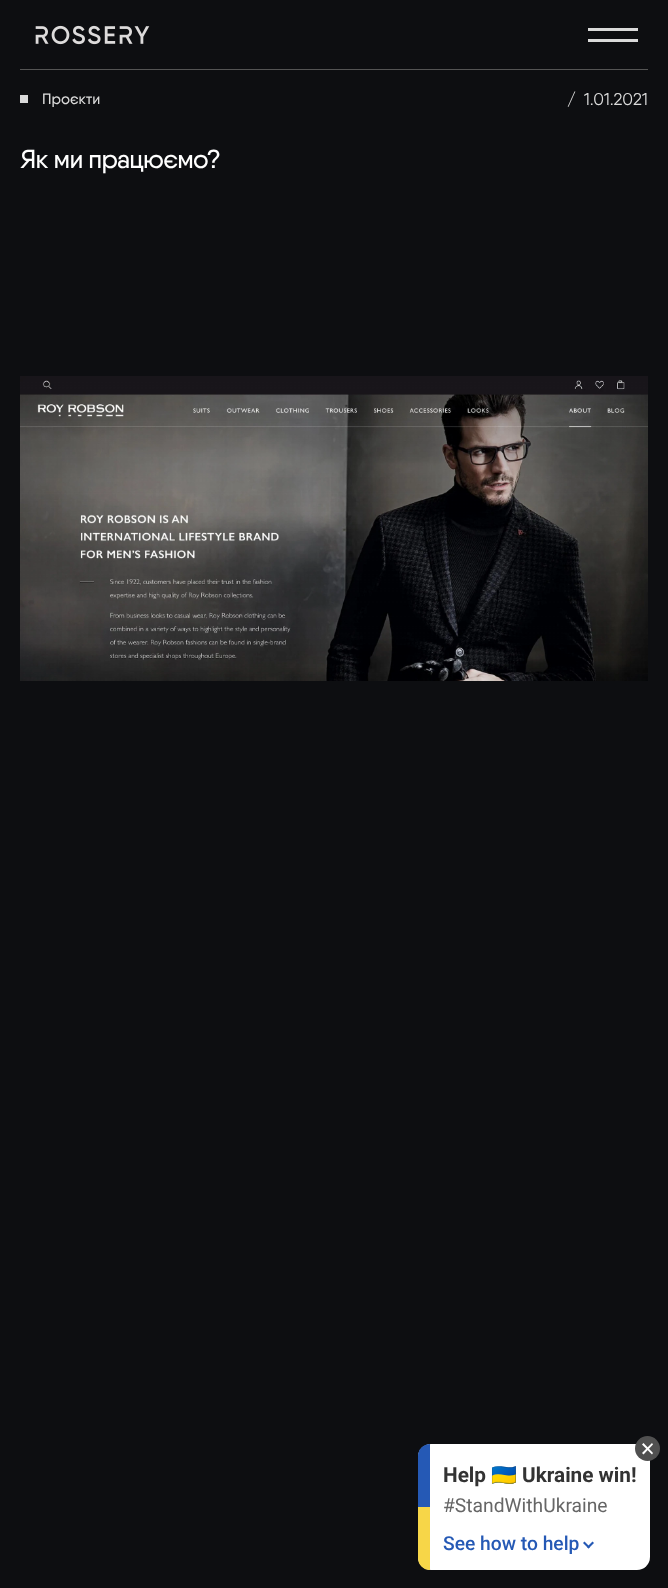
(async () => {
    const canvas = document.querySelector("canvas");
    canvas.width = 668;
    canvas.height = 1588;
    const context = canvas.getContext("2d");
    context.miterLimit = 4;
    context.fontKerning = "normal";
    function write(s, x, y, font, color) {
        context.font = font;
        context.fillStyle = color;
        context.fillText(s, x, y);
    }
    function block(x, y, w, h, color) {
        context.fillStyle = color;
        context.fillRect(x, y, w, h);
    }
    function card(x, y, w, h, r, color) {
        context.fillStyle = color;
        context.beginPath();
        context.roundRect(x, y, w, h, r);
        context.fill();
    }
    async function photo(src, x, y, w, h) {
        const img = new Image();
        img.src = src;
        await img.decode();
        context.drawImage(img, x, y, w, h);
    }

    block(0, 0, 668, 1588, "rgb(13, 14, 17)");
    await photo("media/1.png", 35, 25, 115, 20);
    block(588, 28, 50, 3, "rgb(218, 218, 218)");
    block(588, 39, 50, 3, "rgb(218, 218, 218)");
    block(20, 69, 628, 1, "rgb(84, 84, 84)");
    block(20, 95, 8, 8, "rgb(218, 218, 218)");
    write("Проєкти", 42, 104, "500 15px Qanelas", "rgb(218, 218, 218)");
    write("/", 567, 105, "17px Qanelas", "rgb(218, 218, 218)");
    write("1.01.2021", 584, 105, "17px Qanelas", "rgb(218, 218, 218)");
    context.letterSpacing = "-0.75px";
    write("Як ми працюємо?", 20, 168, "500 26px Qanelas", "rgb(255, 255, 255)");
    await photo("media/2.png", 20, 376, 628, 305);
    card(418, 1444, 232, 126, 13, "rgb(255, 255, 255)");
    context.fillStyle = "rgb(37, 89, 181)";
    context.beginPath();
    context.roundRect(418, 1444, 12, 63, [12, 0, 0, 0]);
    context.fill();
    context.fillStyle = "rgb(247, 214, 72)";
    context.beginPath();
    context.roundRect(418, 1507, 12, 63, [0, 0, 0, 12]);
    context.fill();
    context.letterSpacing = "0px";
    write("Help", 443, 1482, "bold 20.75px Roboto", "rgb(51, 51, 51)");
    write("🇺🇦", 491, 1482, "bold 20.75px Noto Color Emoji", "rgb(51, 51, 51)");
    write("Ukraine win!", 522, 1482, "bold 20.75px Roboto", "rgb(51, 51, 51)");
    context.fillStyle = "rgb(80, 80, 80)";
    context.beginPath();
    context.arc(647.5, 1448.5, 12.5, 0, Math.PI * 2);
    context.fill();
    context.fillStyle = "rgb(255, 255, 255)";
    context.beginPath();
    context.moveTo(642, 1444.5);
    context.lineTo(643.5, 1443);
    context.lineTo(653, 1453);
    context.lineTo(652, 1454.5);
    context.closePath();
    context.fill();
    context.beginPath();
    context.moveTo(652, 1443);
    context.lineTo(653, 1444.5);
    context.lineTo(643.5, 1454.5);
    context.lineTo(642, 1453);
    context.closePath();
    context.fill();
    write("#StandWithUkraine", 443, 1512, "19.25px Roboto", "rgb(102, 102, 102)");
    write("See how to help", 443, 1550, "500 19.25px Roboto", "rgb(37, 89, 181)");
    context.beginPath();
    context.moveTo(587, 1547);
    context.lineTo(592.5, 1541.5);
    context.lineTo(594, 1543);
    context.lineTo(588.5, 1548.5);
    context.closePath();
    context.fill();
    context.beginPath();
    context.moveTo(583, 1543);
    context.lineTo(584.5, 1541.5);
    context.lineTo(590, 1547);
    context.lineTo(588.5, 1548.5);
    context.closePath();
    context.fill();
})();
